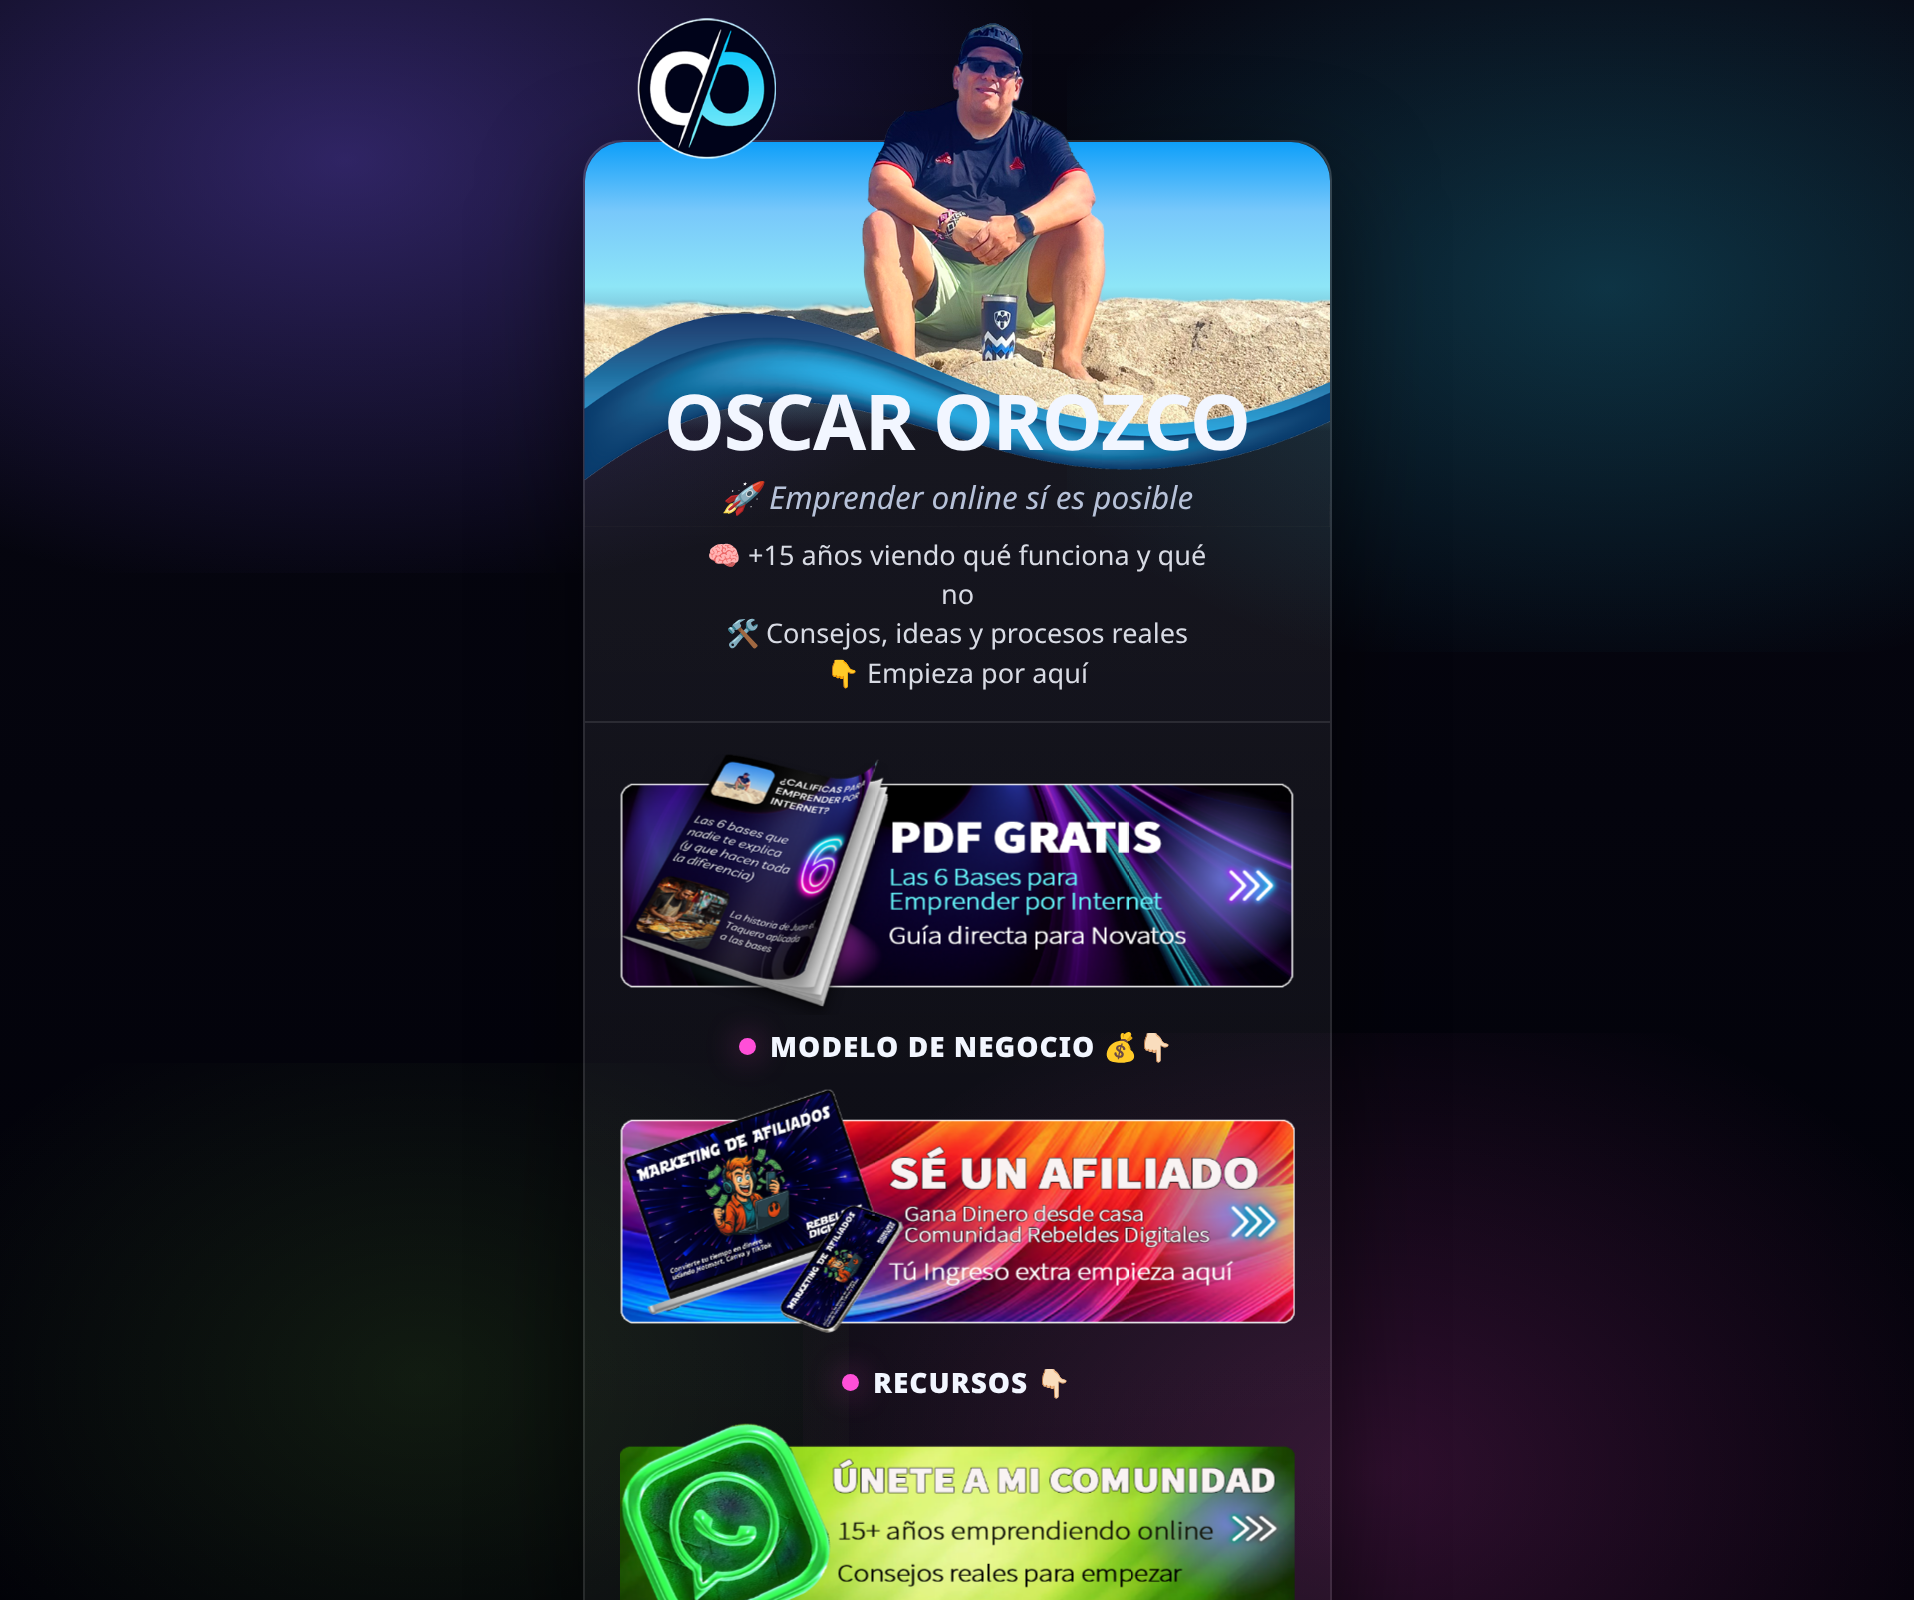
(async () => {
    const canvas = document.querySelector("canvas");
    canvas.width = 1914;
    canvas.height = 1600;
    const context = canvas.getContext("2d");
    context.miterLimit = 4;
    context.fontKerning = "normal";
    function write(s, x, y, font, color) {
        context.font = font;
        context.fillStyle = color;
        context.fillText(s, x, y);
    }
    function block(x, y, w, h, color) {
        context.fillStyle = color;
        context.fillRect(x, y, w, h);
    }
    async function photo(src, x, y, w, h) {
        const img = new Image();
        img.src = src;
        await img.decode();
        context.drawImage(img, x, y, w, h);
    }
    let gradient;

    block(0, 0, 1914, 1600, "rgb(255, 255, 255)");
    gradient = context.createLinearGradient(957, 0, 957, 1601);
    gradient.addColorStop(0, "rgb(7, 7, 18)");
    gradient.addColorStop(1, "rgb(1, 1, 8)");
    context.fillStyle = gradient;
    context.fillRect(0, 0, 1914, 1600);
    gradient = context.createRadialGradient(421, 1884.32, 0, 421, 1884.32, 910);
    gradient.addColorStop(0, "rgba(156, 255, 87, 0.1)");
    gradient.addColorStop(0.6, "rgba(156, 255, 87, 0)");
    context.fillStyle = gradient;
    context.beginPath();
    context.rect(0, 1063, 849, 537);
    context.save();
    context.clip();
    context.scale(1, 665 / 910);
    context.fillRect(0, 0, 1914, 2190);
    context.restore();
    gradient = context.createRadialGradient(1378, 1926.23, 0, 1378, 1926.23, 1190);
    gradient.addColorStop(0, "rgba(255, 79, 216, 0.18)");
    gradient.addColorStop(0.55, "rgba(255, 79, 216, 0)");
    context.fillStyle = gradient;
    context.beginPath();
    context.rect(803, 1033, 1111, 567);
    context.save();
    context.clip();
    context.scale(1, 910 / 1190);
    context.fillRect(0, 0, 1914, 2093);
    context.restore();
    gradient = context.createRadialGradient(1608, 466.29, 0, 1608, 466.29, 1190);
    gradient.addColorStop(0, "rgba(41, 215, 255, 0.22)");
    gradient.addColorStop(0.55, "rgba(41, 215, 255, 0)");
    context.fillStyle = gradient;
    context.beginPath();
    context.rect(1067, 0, 847, 652);
    context.save();
    context.clip();
    context.scale(1, 735 / 1190);
    context.fillRect(0, 0, 1914, 2591);
    context.restore();
    gradient = context.createRadialGradient(345, 266.67, 0, 345, 266.67, 1225);
    gradient.addColorStop(0, "rgba(124, 92, 255, 0.35)");
    gradient.addColorStop(0.6, "rgba(124, 92, 255, 0)");
    context.fillStyle = gradient;
    context.beginPath();
    context.rect(0, 0, 1032, 573);
    context.save();
    context.clip();
    context.scale(1, 735 / 1225);
    context.fillRect(0, 0, 1914, 2667);
    context.restore();
    context.save();
    context.beginPath();
    context.moveTo(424, 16);
    context.lineTo(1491, 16);
    context.lineTo(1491, 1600);
    context.lineTo(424, 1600);
    context.closePath();
    context.moveTo(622, 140);
    context.lineTo(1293, 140);
    context.bezierCurveTo(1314.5, 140, 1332, 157.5, 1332, 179);
    context.lineTo(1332, 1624);
    context.bezierCurveTo(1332, 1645.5, 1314.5, 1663, 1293, 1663);
    context.lineTo(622, 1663);
    context.bezierCurveTo(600.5, 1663, 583, 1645.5, 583, 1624);
    context.lineTo(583, 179);
    context.bezierCurveTo(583, 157.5, 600.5, 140, 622, 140);
    context.closePath();
    context.clip("evenodd");
    context.fillStyle = "rgba(0, 0, 0, 0.55)";
    context.filter = "blur(52.5px)";
    context.beginPath();
    context.roundRect(583, 175, 749, 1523, 39);
    context.fill();
    context.filter = "none";
    context.restore();
    gradient = context.createLinearGradient(957, -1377, 957, 142);
    gradient.addColorStop(0, "rgba(255, 255, 255, 0.08)");
    gradient.addColorStop(1, "rgba(255, 255, 255, 0.03)");
    context.fillStyle = gradient;
    context.fillRect(612, 140, 691, 2);
    context.save();
    context.beginPath();
    context.roundRect(583, 140, 749, 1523, 39);
    context.clip();
    gradient = context.createLinearGradient(957, 142, 957, 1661);
    gradient.addColorStop(0, "rgba(255, 255, 255, 0.08)");
    gradient.addColorStop(1, "rgba(255, 255, 255, 0.03)");
    context.fillStyle = gradient;
    context.fillRect(583, 142, 749, 1458);
    context.restore();
    context.beginPath();
    context.roundRect(584, 141, 747, 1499, 38);
    context.strokeStyle = "rgba(255, 255, 255, 0.1)";
    context.lineWidth = 2;
    context.stroke();
    gradient = context.createLinearGradient(957, 142, 957, 721);
    gradient.addColorStop(0, "rgb(14, 159, 249)");
    gradient.addColorStop(0.12, "rgb(120, 200, 251)");
    gradient.addColorStop(0.25, "rgb(142, 230, 247)");
    gradient.addColorStop(0.5, "rgba(142, 230, 247, 0)");
    context.fillStyle = gradient;
    context.beginPath();
    context.roundRect(585, 142, 745, 579, [39, 39, 0, 0]);
    context.fill();
    write("🚀", 721, 509, "italic 31.5px Noto Color Emoji", "rgb(183, 194, 217)");
    write("Emprender online sí es posible", 769, 509, "italic 31.5px Noto Sans", "rgb(183, 194, 217)");
    await photo("media/1.png", 584, 18, 746, 509);
    context.letterSpacing = "-1.25px";
    write("OSCAR OROZCO", 664, 450, "bold 77px Noto Sans", "rgb(242, 246, 255)");
    context.letterSpacing = "0px";
    write("🧠", 707, 565, "27.1px Noto Color Emoji", "rgb(216, 219, 228)");
    write("+15 años viendo qué funciona y qué", 748, 565, "27.1px Noto Sans", "rgb(216, 219, 228)");
    write("no", 941, 604, "27.1px Noto Sans", "rgb(216, 219, 228)");
    write("🛠️", 726, 643, "27.1px Noto Color Emoji", "rgb(216, 219, 228)");
    write("Consejos, ideas y procesos reales", 766, 643, "27.1px Noto Sans", "rgb(216, 219, 228)");
    write("👇", 826, 683, "27.1px Noto Color Emoji", "rgb(216, 219, 228)");
    write("Empieza por aquí", 867, 683, "27.1px Noto Sans", "rgb(216, 219, 228)");
    block(585, 721, 745, 2, "rgba(255, 255, 255, 0.1)");
    context.fillStyle = "rgba(255, 79, 216, 0.55)";
    context.filter = "blur(16px)";
    context.beginPath();
    context.roundRect(739, 1038, 17, 17, 8.5);
    context.fill();
    context.filter = "none";
    await photo("media/2.png", 620, 754, 674, 261);
    context.fillStyle = "rgb(255, 79, 216)";
    context.beginPath();
    context.arc(747.5, 1046.5, 8.5, 0, Math.PI * 2);
    context.fill();
    context.letterSpacing = "1px";
    write("MODELO DE NEGOCIO", 770, 1057, "900 28px Noto Sans", "rgb(242, 246, 255)");
    write("💰👇🏻", 1103, 1057, "bold 28px Noto Color Emoji", "rgb(242, 246, 255)");
    context.fillStyle = "rgba(255, 79, 216, 0.55)";
    context.filter = "blur(16px)";
    context.beginPath();
    context.roundRect(842, 1374, 17, 17, 8.5);
    context.fill();
    context.filter = "none";
    await photo("media/3.png", 620, 1089, 675, 244);
    context.fillStyle = "rgb(255, 79, 216)";
    context.beginPath();
    context.arc(850.5, 1382.5, 8.5, 0, Math.PI * 2);
    context.fill();
    write("RECURSOS", 873, 1393, "900 28px Noto Sans", "rgb(242, 246, 255)");
    write("👇🏻", 1036, 1393, "bold 28px Noto Color Emoji", "rgb(242, 246, 255)");
    await photo("media/4.png", 620, 1423, 675, 177);
})();
